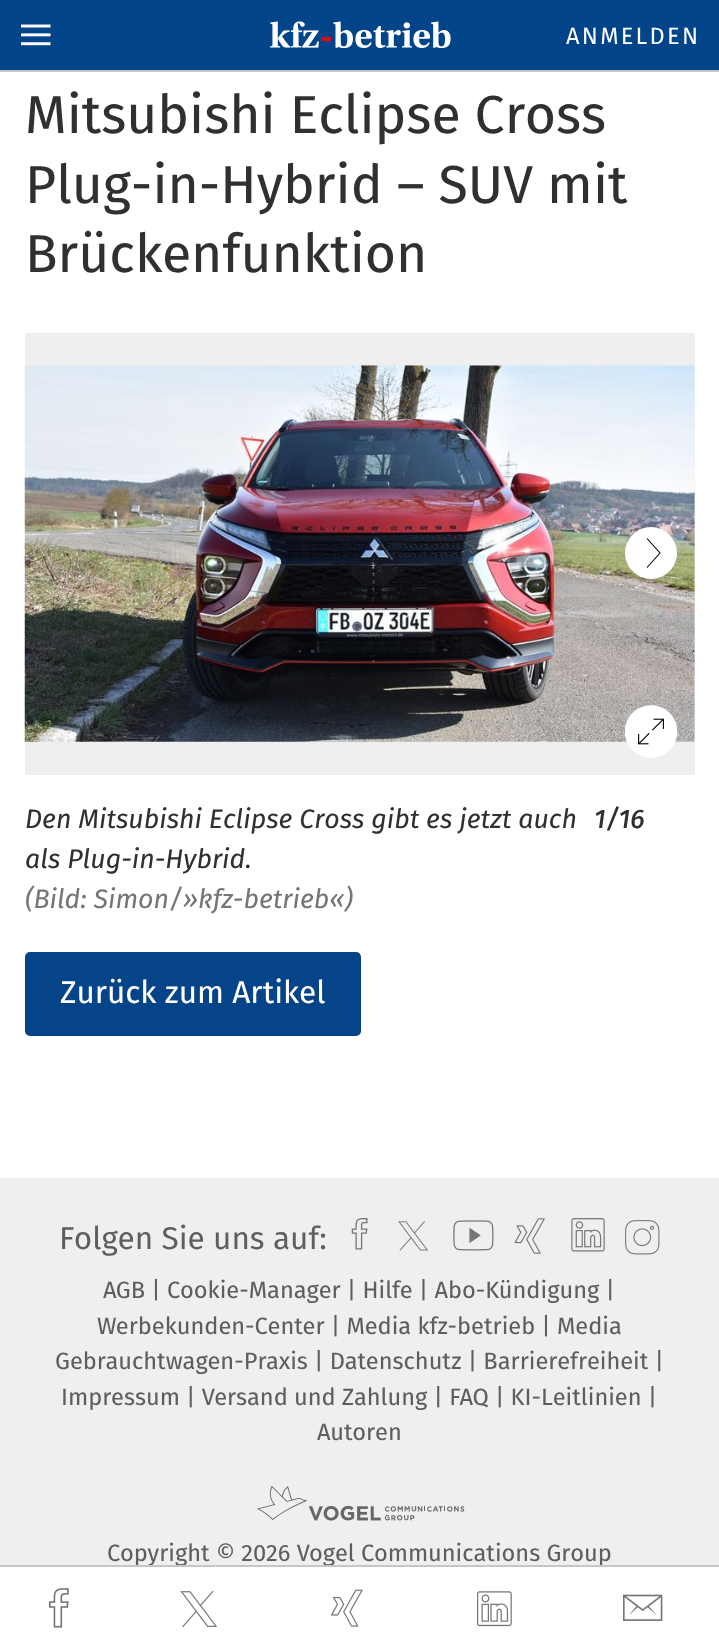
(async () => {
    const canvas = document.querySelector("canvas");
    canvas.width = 719;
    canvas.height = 1651;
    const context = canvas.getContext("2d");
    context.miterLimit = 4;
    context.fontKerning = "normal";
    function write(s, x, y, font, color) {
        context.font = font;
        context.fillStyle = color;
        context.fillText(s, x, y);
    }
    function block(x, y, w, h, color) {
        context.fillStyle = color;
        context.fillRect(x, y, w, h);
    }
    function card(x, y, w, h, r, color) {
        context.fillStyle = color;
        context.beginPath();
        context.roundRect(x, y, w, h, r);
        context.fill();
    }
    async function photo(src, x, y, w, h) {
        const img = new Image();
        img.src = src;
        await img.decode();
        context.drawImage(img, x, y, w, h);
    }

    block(0, 0, 719, 1651, "rgb(255, 255, 255)");
    block(0, 70, 719, 2, "rgb(198, 198, 198)");
    block(0, 0, 719, 70, "rgb(1, 68, 137)");
    await photo("media/1.png", 21, 24, 30, 22);
    await photo("media/2.png", 270, 21, 181, 28);
    context.letterSpacing = "2.25px";
    write("ANMELDEN", 566, 44, "23.6px 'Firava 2'", "rgb(255, 255, 255)");
    context.letterSpacing = "0px";
    write("Mitsubishi Eclipse Cross", 25, 133, "53.5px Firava", "rgb(48, 48, 48)");
    write("Plug-in-Hybrid – SUV mit", 25, 203, "53.5px Firava", "rgb(48, 48, 48)");
    write("Brückenfunktion", 25, 272, "53.5px Firava", "rgb(48, 48, 48)");
    block(25, 333, 670, 442, "rgb(239, 239, 239)");
    await photo("media/3.png", 24, 365, 671, 377);
    context.fillStyle = "rgb(255, 255, 255)";
    context.beginPath();
    context.moveTo(651, 527);
    context.bezierCurveTo(637, 527, 625, 539, 625, 553);
    context.bezierCurveTo(625, 567, 637, 579, 651, 579);
    context.bezierCurveTo(665, 579, 677, 567, 677, 553);
    context.bezierCurveTo(677, 539, 665, 527, 651, 527);
    context.fill();
    context.beginPath();
    context.moveTo(647, 567.5);
    context.lineTo(660, 553);
    context.lineTo(647, 538.5);
    context.strokeStyle = "rgb(0, 0, 0)";
    context.lineWidth = 1.1;
    context.stroke();
    await photo("media/4.png", 625, 705, 52, 53);
    write("Den Mitsubishi Eclipse Cross gibt es jetzt auch", 25, 828, "italic 26.75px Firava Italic", "rgb(48, 48, 48)");
    write("als Plug-in-Hybrid.", 25, 868, "italic 26.75px Firava Italic", "rgb(48, 48, 48)");
    write("(Bild: Simon/»kfz-betrieb«)", 25, 908, "italic 26.75px Firava Italic", "rgb(118, 118, 118)");
    write("1/16", 594, 828, "italic 500 26.75px Firava Italic", "rgb(48, 48, 48)");
    card(25, 952, 336, 84, 5, "rgb(5, 68, 137)");
    write("Zurück zum Artikel", 60, 1003, "31.5px Firava", "rgb(255, 255, 255)");
    block(0, 1178, 719, 387, "rgb(239, 239, 239)");
    write("Copyright © 2026 Vogel Communications Group", 107, 1561, "23.6px Firava", "rgb(94, 94, 94)");
    block(0, 1565, 719, 2, "rgb(198, 198, 198)");
    await photo("media/5.png", 49, 1588, 20, 40);
    await photo("media/6.png", 180, 1591, 38, 36);
    await photo("media/7.png", 331, 1589, 32, 38);
    await photo("media/8.png", 477, 1591, 35, 36);
    await photo("media/9.png", 623, 1594, 40, 27);
    write("Folgen Sie uns auf:", 59, 1249, "31.5px 'Firava 2'", "rgb(94, 94, 94)");
    await photo("media/10.png", 351, 1218, 17, 32);
    await photo("media/11.png", 398, 1221, 30, 30);
    await photo("media/12.png", 453, 1220, 41, 31);
    await photo("media/13.png", 514, 1218, 31, 36);
    await photo("media/14.png", 571, 1218, 34, 34);
    await photo("media/15.png", 625, 1220, 35, 35);
    write("AGB | Cookie-Manager | Hilfe | Abo-Kündigung |", 103, 1298, "23.6px Firava", "rgb(94, 94, 94)");
    write("Werbekunden-Center | Media kfz-betrieb | Media", 97, 1334, "23.6px Firava", "rgb(94, 94, 94)");
    write("Gebrauchtwagen-Praxis | Datenschutz | Barrierefreiheit |", 55, 1369, "23.6px Firava", "rgb(94, 94, 94)");
    write("Impressum | Versand und Zahlung | FAQ | KI-Leitlinien |", 61, 1405, "23.6px Firava", "rgb(94, 94, 94)");
    write("Autoren", 317, 1440, "23.6px Firava", "rgb(94, 94, 94)");
    await photo("media/16.png", 257, 1486, 208, 35);
})();
